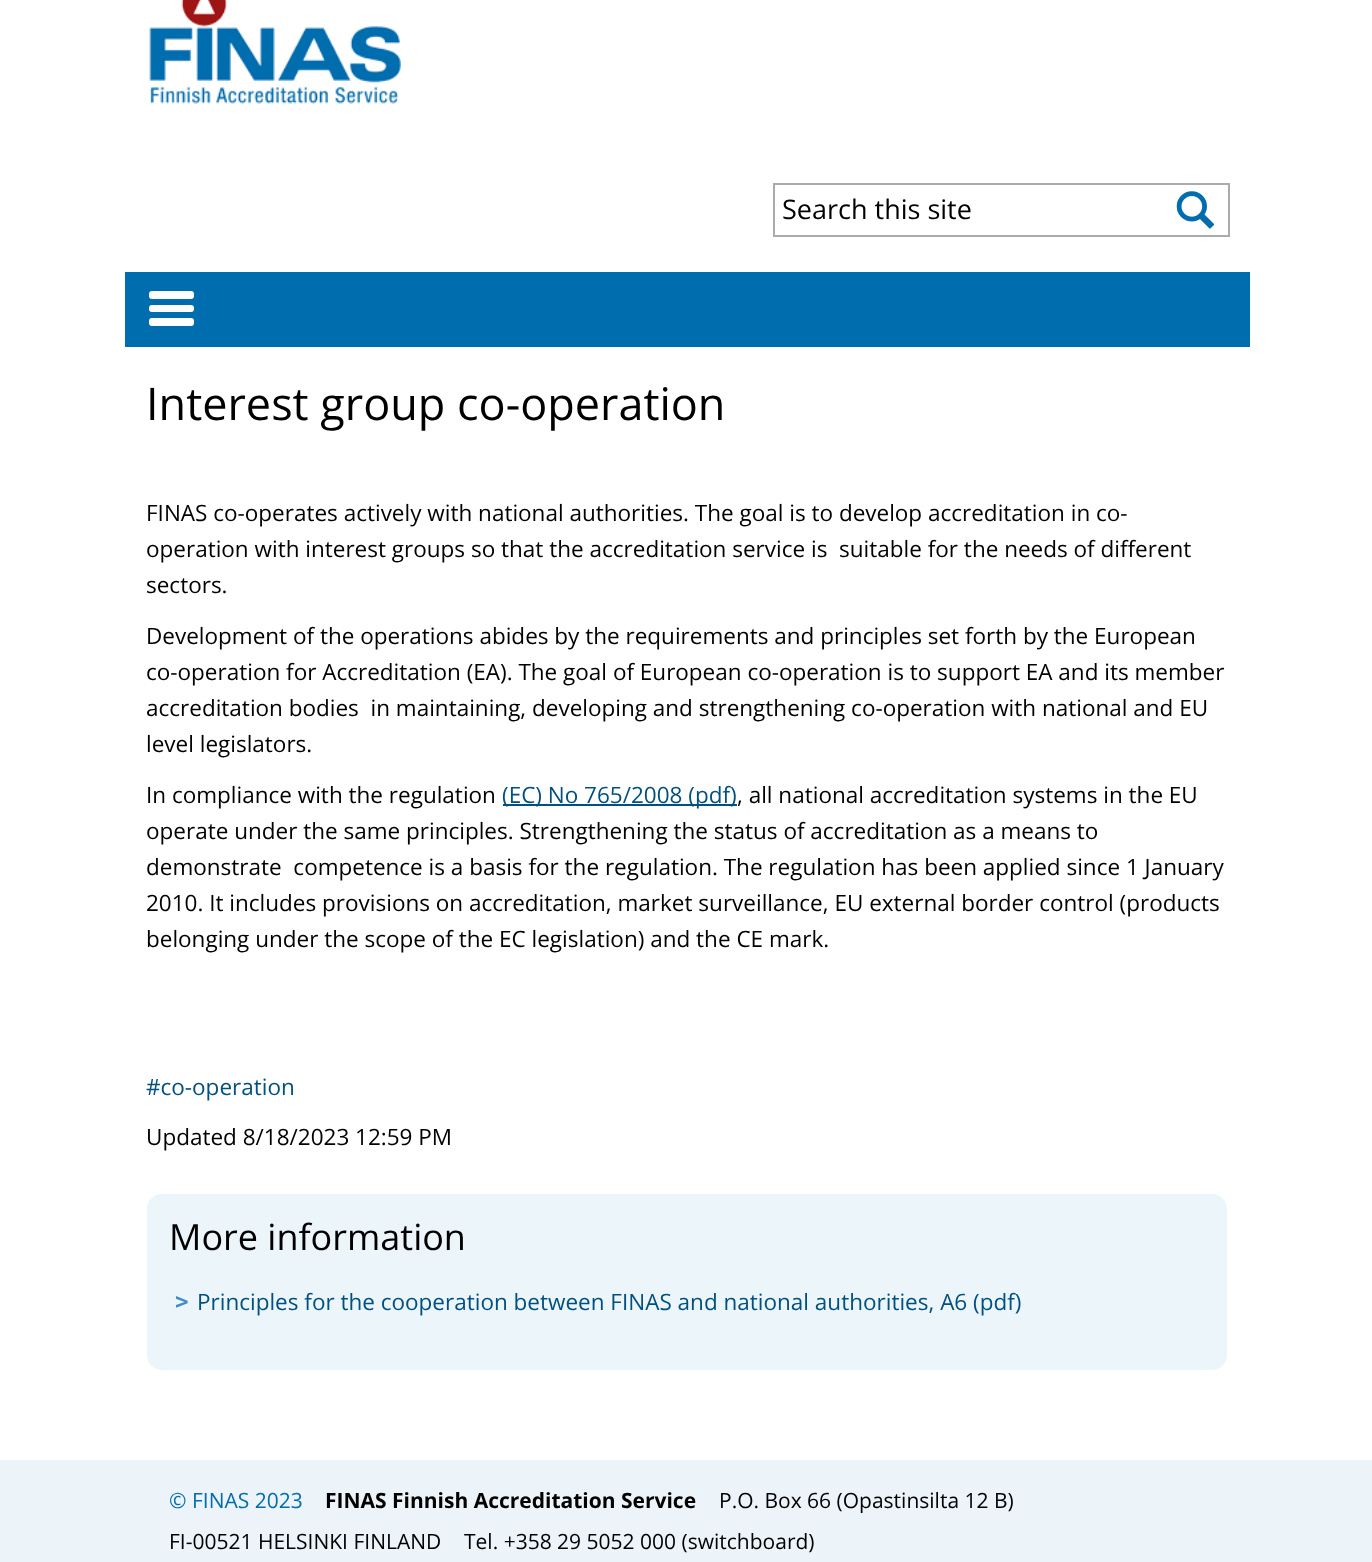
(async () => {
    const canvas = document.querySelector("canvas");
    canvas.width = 1372;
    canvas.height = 1562;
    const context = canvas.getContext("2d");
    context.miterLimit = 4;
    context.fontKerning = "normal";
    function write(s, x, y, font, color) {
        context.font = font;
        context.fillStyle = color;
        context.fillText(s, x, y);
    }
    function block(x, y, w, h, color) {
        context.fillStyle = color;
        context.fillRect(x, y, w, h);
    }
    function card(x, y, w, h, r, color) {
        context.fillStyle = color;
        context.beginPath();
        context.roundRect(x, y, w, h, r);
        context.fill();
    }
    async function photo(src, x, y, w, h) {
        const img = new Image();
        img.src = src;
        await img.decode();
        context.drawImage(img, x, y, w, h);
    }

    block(0, 0, 1372, 1562, "rgb(255, 255, 255)");
    await photo("media/1.png", 149, 0, 253, 104);
    context.strokeStyle = "rgb(171, 171, 171)";
    context.lineWidth = 2;
    context.strokeRect(774, 184, 455, 52);
    write("Search this site", 782, 219, "27px Open Sans", "rgb(0, 0, 0)");
    await photo("media/2.png", 1176, 191, 39, 38);
    block(125, 272, 1125, 75, "rgb(0, 109, 175)");
    card(149, 291, 45, 8, 3, "rgb(255, 255, 255)");
    card(149, 305, 45, 7, 3, "rgb(255, 255, 255)");
    card(149, 318, 45, 8, 3, "rgb(255, 255, 255)");
    write("Interest group co-operation", 146, 420, "45px Open Sans", "rgb(0, 0, 0)");
    write("FINAS co-operates actively with national authorities. The goal is to develop accreditation in co-", 146, 521, "22.5px Open Sans", "rgb(0, 0, 0)");
    write("operation with interest groups so that the accreditation service is  suitable for the needs of different", 146, 557, "22.5px Open Sans", "rgb(0, 0, 0)");
    write("sectors.", 146, 593, "22.5px Open Sans", "rgb(0, 0, 0)");
    write("Development of the operations abides by the requirements and principles set forth by the European", 146, 644, "22.5px Open Sans", "rgb(0, 0, 0)");
    write("co-operation for Accreditation (EA). The goal of European co-operation is to support EA and its member", 146, 680, "22.5px Open Sans", "rgb(0, 0, 0)");
    write("accreditation bodies  in maintaining, developing and strengthening co-operation with national and EU", 146, 716, "22.5px Open Sans", "rgb(0, 0, 0)");
    write("level legislators.", 146, 752, "22.5px Open Sans", "rgb(0, 0, 0)");
    write("In compliance with the regulation", 146, 803, "22.5px Open Sans", "rgb(0, 0, 0)");
    block(503, 804, 234, 2, "rgb(0, 80, 128)");
    write("(EC) No 765/2008 (pdf)", 502, 803, "22.5px Open Sans", "rgb(0, 80, 128)");
    write(", all national accreditation systems in the EU", 737, 803, "22.5px Open Sans", "rgb(0, 0, 0)");
    write("operate under the same principles. Strengthening the status of accreditation as a means to", 146, 839, "22.5px Open Sans", "rgb(0, 0, 0)");
    write("demonstrate  competence is a basis for the regulation. The regulation has been applied since 1 January", 146, 875, "22.5px Open Sans", "rgb(0, 0, 0)");
    write("2010. It includes provisions on accreditation, market surveillance, EU external border control (products", 146, 911, "22.5px Open Sans", "rgb(0, 0, 0)");
    write("belonging under the scope of the EC legislation) and the CE mark.", 146, 947, "22.5px Open Sans", "rgb(0, 0, 0)");
    write("#co-operation", 146, 1095, "22.5px Open Sans", "rgb(0, 80, 128)");
    write("Updated 8/18/2023 12:59 PM", 146, 1145, "22.5px Open Sans", "rgb(0, 0, 0)");
    card(147, 1194, 1080, 176, 15, "rgb(236, 245, 249)");
    write("More information", 169, 1250, "36px Open Sans", "rgb(0, 0, 0)");
    write(">", 175, 1309, "bold 22.5px DejaVu Sans Mono", "rgb(66, 139, 202)");
    write("Principles for the cooperation between FINAS and national authorities, A6 (pdf)", 197, 1310, "22.5px Open Sans", "rgb(0, 80, 128)");
    block(0, 1460, 1372, 102, "rgb(236, 244, 249)");
    write("© FINAS 2023", 169, 1508, "21px Open Sans", "rgb(0, 109, 175)");
    write("FINAS Finnish Accreditation Service", 325, 1508, "bold 21px Open Sans", "rgb(0, 0, 0)");
    write("P.O. Box 66 (Opastinsilta 12 B)", 719, 1508, "21px Open Sans", "rgb(0, 0, 0)");
    write("FI-00521 HELSINKI FINLAND", 169, 1549, "21px Open Sans", "rgb(0, 0, 0)");
    write("Tel. +358 29 5052 000 (switchboard)", 464, 1549, "21px Open Sans", "rgb(0, 0, 0)");
})();
